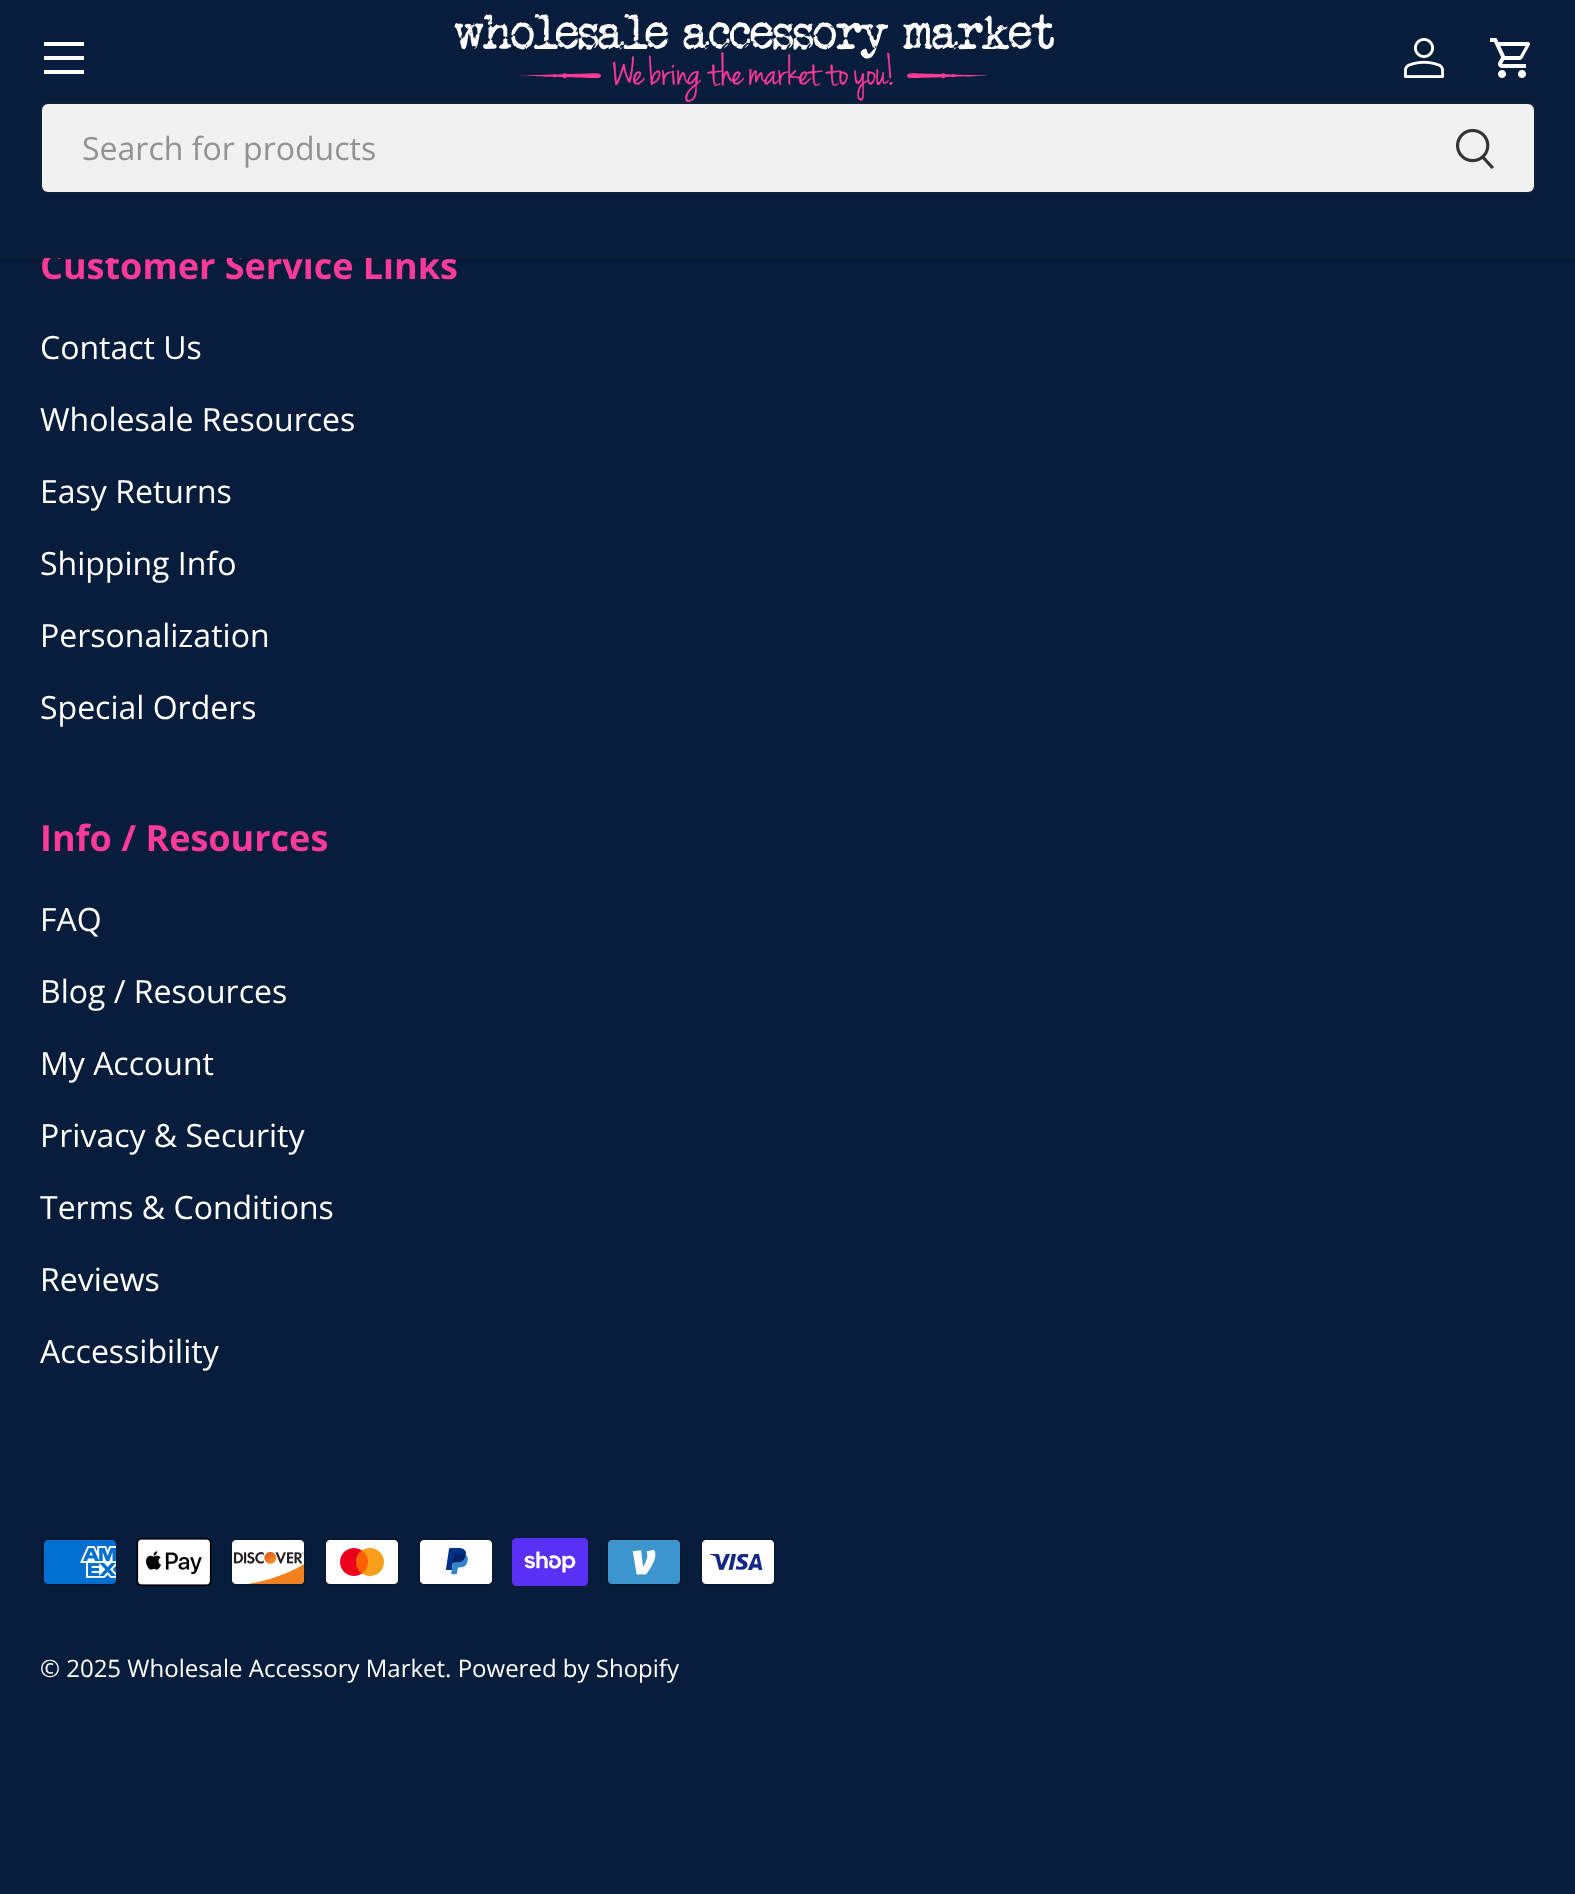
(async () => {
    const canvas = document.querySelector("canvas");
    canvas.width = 1575;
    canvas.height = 1894;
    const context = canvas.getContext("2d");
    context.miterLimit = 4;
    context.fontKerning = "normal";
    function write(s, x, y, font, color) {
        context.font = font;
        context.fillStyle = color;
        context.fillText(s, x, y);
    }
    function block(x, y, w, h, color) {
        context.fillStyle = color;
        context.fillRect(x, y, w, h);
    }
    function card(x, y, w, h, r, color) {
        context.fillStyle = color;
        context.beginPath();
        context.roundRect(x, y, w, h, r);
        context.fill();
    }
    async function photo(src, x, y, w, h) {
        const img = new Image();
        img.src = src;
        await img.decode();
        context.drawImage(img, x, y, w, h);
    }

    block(0, 0, 1575, 1894, "rgb(7, 29, 59)");
    context.fillStyle = "rgba(0, 0, 0, 0.08)";
    context.filter = "blur(3px)";
    context.beginPath();
    context.rect(-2, -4, 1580, 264);
    context.fill();
    context.filter = "none";
    write("Customer Service Links", 40, 279, "bold 36px Open Sans", "rgb(252, 58, 153)");
    block(0, 0, 1575, 256, "rgb(7, 29, 59)");
    block(44, 42, 40, 4, "rgb(255, 255, 255)");
    block(44, 70, 40, 4, "rgb(255, 255, 255)");
    block(44, 56, 40, 4, "rgb(255, 255, 255)");
    await photo("media/1.png", 454, 14, 600, 88);
    await photo("media/2.png", 1404, 38, 40, 40);
    await photo("media/3.png", 1490, 38, 40, 40);
    context.beginPath();
    context.roundRect(41, 103, 1494, 90, 5);
    context.strokeStyle = "rgb(14, 32, 58)";
    context.lineWidth = 2;
    context.stroke();
    card(42, 104, 1492, 88, 6, "rgb(241, 241, 241)");
    write("Search for products", 82, 160, "32px Open Sans", "rgb(146, 146, 146)");
    await photo("media/4.png", 1456, 128, 38, 41);
    block(0, 256, 1575, 2, "rgb(11, 30, 55)");
    write("Contact Us", 40, 359, "32px Open Sans", "rgb(255, 255, 255)");
    write("Wholesale Resources", 40, 431, "32px Open Sans", "rgb(255, 255, 255)");
    write("Easy Returns", 40, 503, "32px Open Sans", "rgb(255, 255, 255)");
    write("Shipping Info", 40, 575, "32px Open Sans", "rgb(255, 255, 255)");
    write("Personalization", 40, 647, "32px Open Sans", "rgb(255, 255, 255)");
    write("Special Orders", 40, 719, "32px Open Sans", "rgb(255, 255, 255)");
    write("Info / Resources", 40, 851, "bold 36px Open Sans", "rgb(252, 58, 153)");
    write("FAQ", 40, 931, "32px Open Sans", "rgb(255, 255, 255)");
    write("Blog / Resources", 40, 1003, "32px Open Sans", "rgb(255, 255, 255)");
    write("My Account", 40, 1075, "32px Open Sans", "rgb(255, 255, 255)");
    write("Privacy & Security", 40, 1147, "32px Open Sans", "rgb(255, 255, 255)");
    write("Terms & Conditions", 40, 1219, "32px Open Sans", "rgb(255, 255, 255)");
    write("Reviews", 40, 1291, "32px Open Sans", "rgb(255, 255, 255)");
    write("Accessibility", 40, 1363, "32px Open Sans", "rgb(255, 255, 255)");
    await photo("media/5.png", 42, 1538, 76, 48);
    await photo("media/6.png", 136, 1538, 76, 48);
    await photo("media/7.png", 230, 1538, 76, 48);
    await photo("media/8.png", 324, 1538, 76, 48);
    await photo("media/9.png", 418, 1538, 76, 48);
    await photo("media/10.png", 512, 1538, 76, 48);
    await photo("media/11.png", 606, 1538, 76, 48);
    await photo("media/12.png", 700, 1538, 76, 48);
    write("© 2025 Wholesale Accessory Market. Powered by Shopify", 40, 1677, "24px Open Sans", "rgb(255, 255, 255)");
})();
